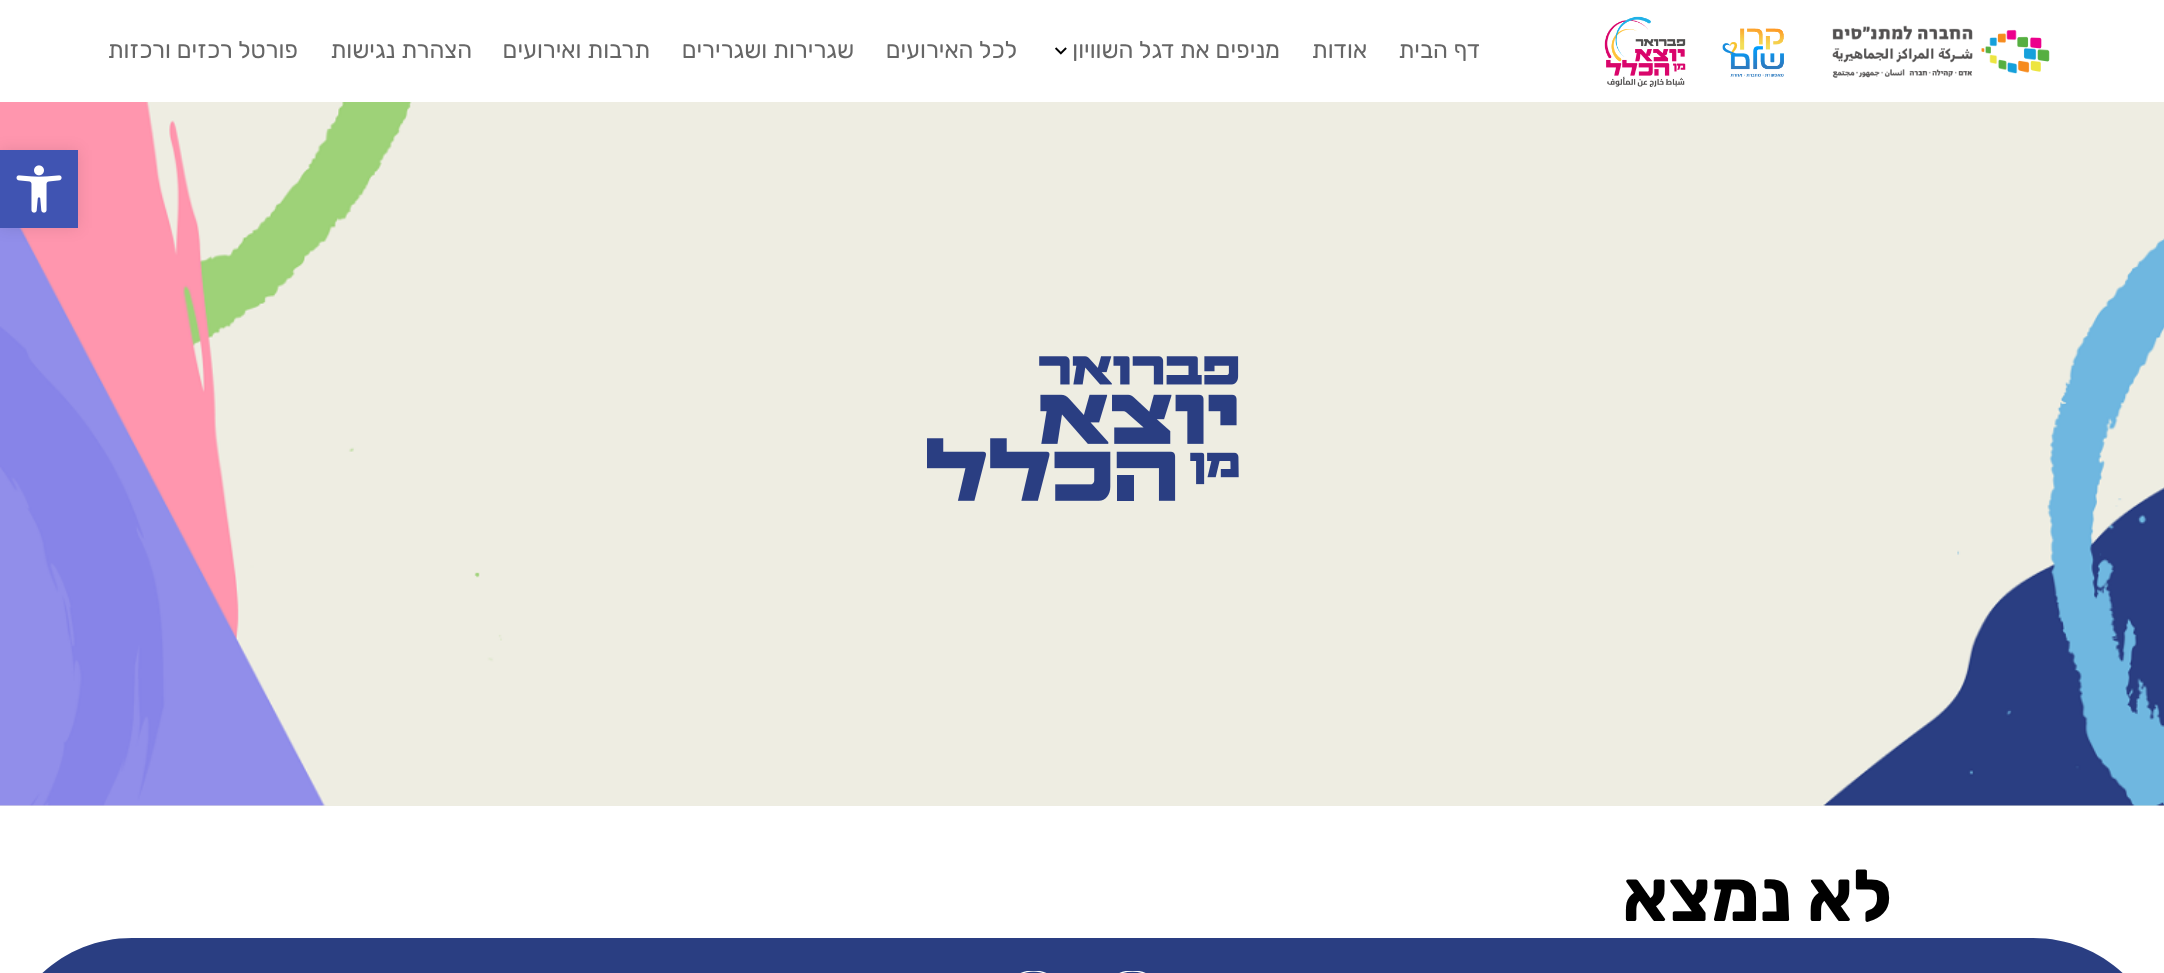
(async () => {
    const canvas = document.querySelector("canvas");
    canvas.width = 2164;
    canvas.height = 973;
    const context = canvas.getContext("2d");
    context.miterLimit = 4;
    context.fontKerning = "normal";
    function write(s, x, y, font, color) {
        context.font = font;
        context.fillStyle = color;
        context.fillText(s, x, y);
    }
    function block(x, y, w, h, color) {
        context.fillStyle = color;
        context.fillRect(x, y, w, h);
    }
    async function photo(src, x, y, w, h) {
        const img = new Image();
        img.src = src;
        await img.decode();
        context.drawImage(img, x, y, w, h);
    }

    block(0, 0, 2164, 973, "rgb(255, 255, 255)");
    await photo("media/1.png", 1832, 25, 218, 53);
    await photo("media/2.png", 1722, 28, 62, 49);
    await photo("media/3.png", 1604, 16, 82, 71);
    context.direction = "rtl";
    write("דף הבית", 1480, 58, "24px Rubik", "rgb(102, 102, 102)");
    write("אודות", 1367, 58, "24px Rubik", "rgb(102, 102, 102)");
    write("מניפים את דגל השוויון", 1280, 58, "24px Rubik", "rgb(102, 102, 102)");
    await photo("media/4.png", 1055, 47, 12, 8);
    write("לכל האירועים", 1017, 58, "24px Rubik", "rgb(102, 102, 102)");
    write("שגרירות ושגרירים", 854, 58, "24px Rubik", "rgb(102, 102, 102)");
    write("תרבות ואירועים", 650, 58, "24px Rubik", "rgb(102, 102, 102)");
    write("הצהרת נגישות", 472, 58, "24px Rubik", "rgb(102, 102, 102)");
    write("פורטל רכזים ורכזות", 298, 58, "24px Rubik", "rgb(102, 102, 102)");
    block(0, 805, 2164, 1, "rgb(238, 237, 226)");
    await photo("media/5.png", 0, 102, 2164, 704);
    await photo("media/6.png", 927, 356, 312, 145);
    context.fillStyle = "rgba(0, 0, 0, 0.1)";
    context.filter = "blur(7.5px)";
    context.beginPath();
    context.rect(0, 150, 78, 78);
    context.fill();
    context.filter = "none";
    block(0, 150, 78, 78, "rgb(64, 84, 178)");
    await photo("media/7.png", 16, 165, 46, 48);
    write("לא נמצא", 1892, 921, "bold 72.5px Rubik", "rgb(0, 0, 0)");
    context.fillStyle = "rgb(42, 62, 130)";
    context.beginPath();
    context.moveTo(132, 938);
    context.lineTo(2033, 938);
    context.bezierCurveTo(2106, 938, 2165, 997, 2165, 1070);
    context.lineTo(0, 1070);
    context.bezierCurveTo(0, 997, 59, 938, 132, 938);
    context.closePath();
    context.fill();
    context.save();
    context.beginPath();
    context.rect(1100, 971, 66, 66);
    context.clip();
    context.beginPath();
    context.arc(1132.5, 1003.5, 32.5, 0, Math.PI * 2);
    context.strokeStyle = "rgb(255, 255, 255)";
    context.lineWidth = 1.3;
    context.stroke();
    context.restore();
    await photo("media/8.png", 1020, 971, 27, 2);
})();
